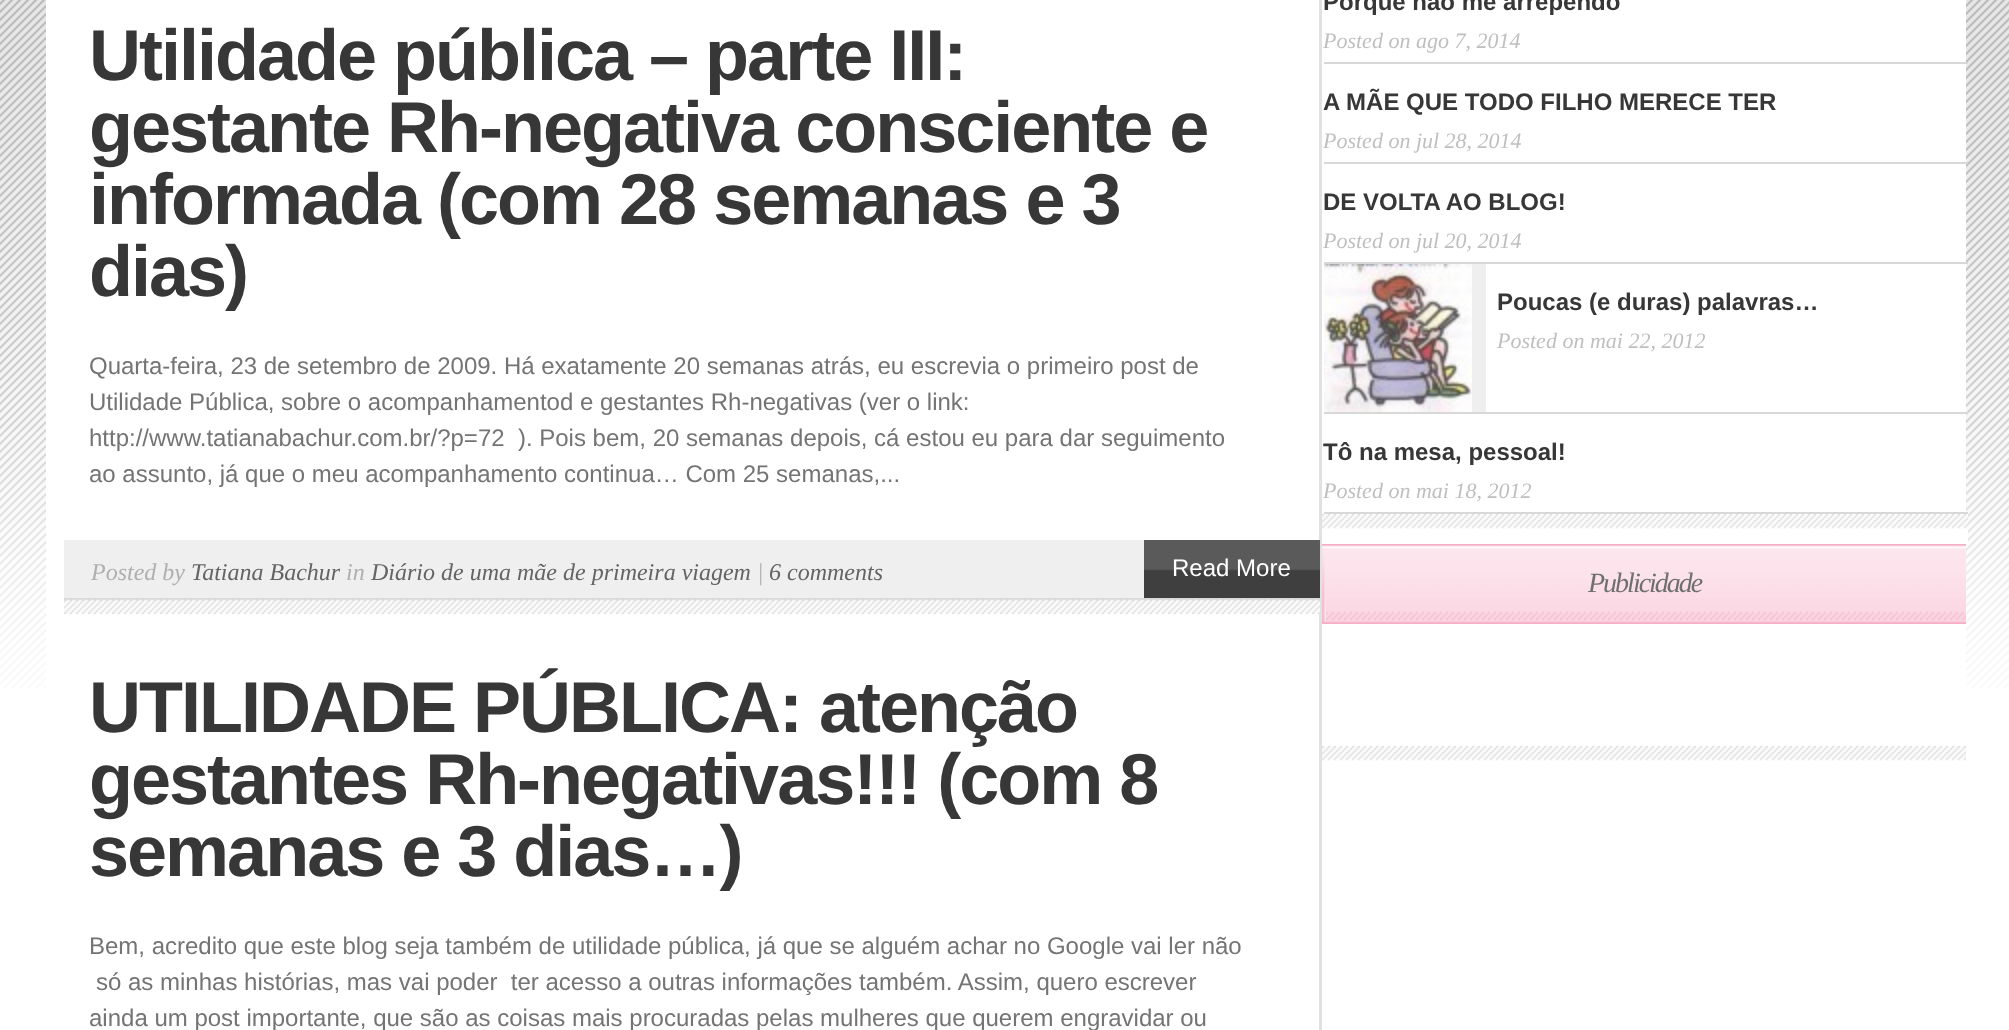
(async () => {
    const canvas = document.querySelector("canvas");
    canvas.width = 2009;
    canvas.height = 1030;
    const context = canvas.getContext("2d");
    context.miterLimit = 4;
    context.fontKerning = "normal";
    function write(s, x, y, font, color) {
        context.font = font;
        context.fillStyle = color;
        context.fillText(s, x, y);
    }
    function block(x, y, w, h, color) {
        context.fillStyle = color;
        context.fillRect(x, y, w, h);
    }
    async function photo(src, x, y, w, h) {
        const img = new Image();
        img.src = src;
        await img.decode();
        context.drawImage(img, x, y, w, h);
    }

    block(0, 0, 2009, 1030, "rgb(255, 255, 255)");
    await photo("media/1.png", 0, 0, 2009, 688);
    block(46, 0, 1920, 688, "rgb(255, 255, 255)");
    block(1319, 0, 3, 1030, "rgb(225, 225, 225)");
    context.letterSpacing = "-2px";
    write("Utilidade pública – parte III:", 89, 80, "bold 72px Liberation Sans", "rgb(56, 55, 55)");
    write("gestante Rh-negativa consciente e", 89, 152, "bold 72px Liberation Sans", "rgb(56, 55, 55)");
    write("informada (com 28 semanas e 3", 89, 224, "bold 72px Liberation Sans", "rgb(56, 55, 55)");
    write("dias)", 89, 296, "bold 72px Liberation Sans", "rgb(56, 55, 55)");
    context.letterSpacing = "0px";
    write("Quarta-feira, 23 de setembro de 2009. Há exatamente 20 semanas atrás, eu escrevia o primeiro post de", 89, 374, "24px Liberation Sans", "rgb(117, 116, 116)");
    write("Utilidade Pública, sobre o acompanhamentod e gestantes Rh-negativas (ver o link:", 89, 410, "24px Liberation Sans", "rgb(117, 116, 116)");
    write("http://www.tatianabachur.com.br/?p=72  ). Pois bem, 20 semanas depois, cá estou eu para dar seguimento", 89, 446, "24px Liberation Sans", "rgb(117, 116, 116)");
    write("ao assunto, já que o meu acompanhamento continua… Com 25 semanas,...", 89, 482, "24px Liberation Sans", "rgb(117, 116, 116)");
    block(64, 540, 1080, 58, "rgb(239, 239, 239)");
    await photo("media/2.png", 64, 598, 1256, 16);
    write("Posted by", 91, 580, "italic 24px Liberation Serif", "rgb(175, 175, 175)");
    write("Tatiana Bachur", 191, 580, "italic 24px Liberation Serif", "rgb(101, 99, 99)");
    write("in", 346, 580, "italic 24px Liberation Serif", "rgb(175, 175, 175)");
    write("Diário de uma mãe de primeira viagem", 371, 580, "italic 24px Liberation Serif", "rgb(101, 99, 99)");
    write("|", 757, 580, "italic 24px Liberation Serif", "rgb(175, 175, 175)");
    write("6 comments", 769, 580, "italic 24px Liberation Serif", "rgb(101, 99, 99)");
    await photo("media/3.png", 1144, 540, 176, 58);
    write("Read More", 1172, 576, "24px Liberation Sans", "rgb(255, 255, 255)");
    context.letterSpacing = "-2px";
    write("UTILIDADE PÚBLICA: atenção", 89, 732, "bold 72px Liberation Sans", "rgb(56, 55, 55)");
    write("gestantes Rh-negativas!!! (com 8", 89, 804, "bold 72px Liberation Sans", "rgb(56, 55, 55)");
    write("semanas e 3 dias…)", 89, 876, "bold 72px Liberation Sans", "rgb(56, 55, 55)");
    context.letterSpacing = "0px";
    write("Bem, acredito que este blog seja também de utilidade pública, já que se alguém achar no Google vai ler não", 89, 954, "24px Liberation Sans", "rgb(117, 116, 116)");
    write("só as minhas histórias, mas vai poder  ter acesso a outras informações também. Assim, quero escrever", 96, 990, "24px Liberation Sans", "rgb(117, 116, 116)");
    write("ainda um post importante, que são as coisas mais procuradas pelas mulheres que querem engravidar ou", 89, 1026, "24px Liberation Sans", "rgb(117, 116, 116)");
    await photo("media/4.png", 1322, 514, 646, 30);
    block(1324, 62, 644, 2, "rgb(216, 216, 216)");
    write("Porque não me arrependo", 1323, 10, "bold 24px Liberation Sans", "rgb(56, 55, 55)");
    write("Posted on ago 7, 2014", 1323, 48, "italic 22px Liberation Serif", "rgb(191, 191, 191)");
    block(1324, 162, 644, 2, "rgb(216, 216, 216)");
    write("A MÃE QUE TODO FILHO MERECE TER", 1323, 110, "bold 24px Liberation Sans", "rgb(56, 55, 55)");
    write("Posted on jul 28, 2014", 1323, 148, "italic 22px Liberation Serif", "rgb(191, 191, 191)");
    block(1324, 262, 644, 2, "rgb(216, 216, 216)");
    write("DE VOLTA AO BLOG!", 1323, 210, "bold 24px Liberation Sans", "rgb(56, 55, 55)");
    write("Posted on jul 20, 2014", 1323, 248, "italic 22px Liberation Serif", "rgb(191, 191, 191)");
    block(1324, 412, 644, 2, "rgb(216, 216, 216)");
    block(1472, 264, 14, 148, "rgb(239, 239, 239)");
    await photo("media/5.png", 1324, 264, 148, 148);
    write("Poucas (e duras) palavras…", 1497, 310, "bold 24px Liberation Sans", "rgb(56, 55, 55)");
    write("Posted on mai 22, 2012", 1497, 348, "italic 22px Liberation Serif", "rgb(191, 191, 191)");
    block(1324, 512, 644, 2, "rgb(216, 216, 216)");
    write("Tô na mesa, pessoal!", 1323, 460, "bold 24px Liberation Sans", "rgb(56, 55, 55)");
    write("Posted on mai 18, 2012", 1323, 498, "italic 22px Liberation Serif", "rgb(191, 191, 191)");
    await photo("media/6.png", 1322, 746, 644, 15);
    await photo("media/7.png", 1322, 544, 4, 80);
    await photo("media/8.png", 1326, 544, 640, 80);
    context.letterSpacing = "-2px";
    write("Publicidade", 1588, 592, "italic 28px Liberation Serif", "rgb(111, 111, 111)");
})();
